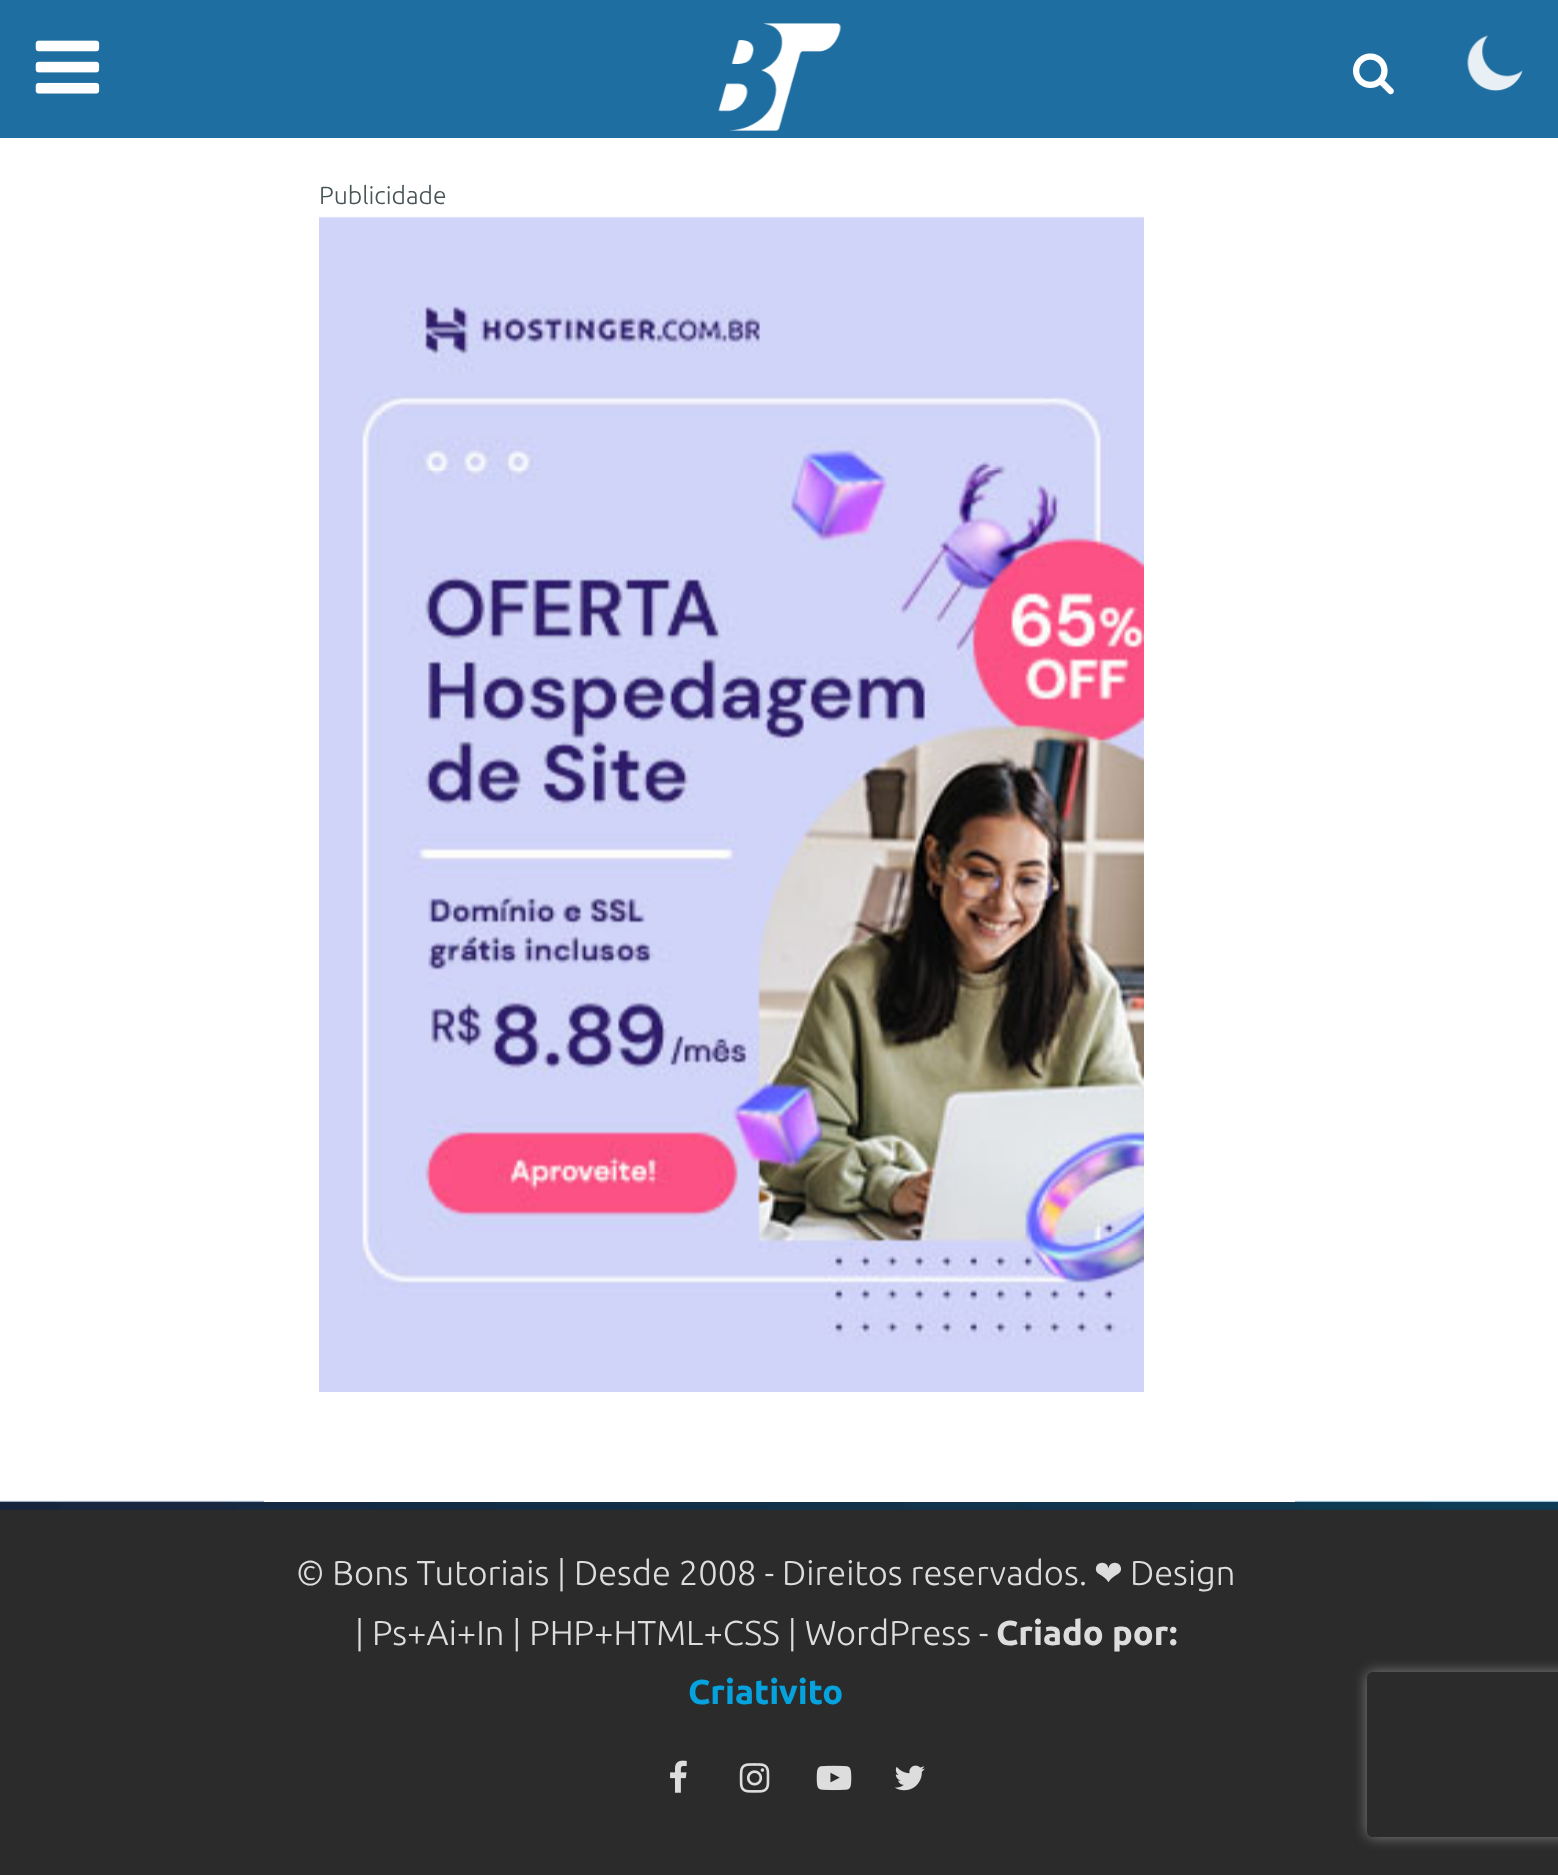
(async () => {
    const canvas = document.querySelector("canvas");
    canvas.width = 1558;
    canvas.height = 1875;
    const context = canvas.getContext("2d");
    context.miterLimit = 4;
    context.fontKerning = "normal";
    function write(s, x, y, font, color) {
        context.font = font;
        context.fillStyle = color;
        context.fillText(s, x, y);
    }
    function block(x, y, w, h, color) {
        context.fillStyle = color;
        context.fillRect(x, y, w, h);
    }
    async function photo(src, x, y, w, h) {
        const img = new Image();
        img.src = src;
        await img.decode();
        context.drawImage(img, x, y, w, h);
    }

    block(0, 0, 1558, 1875, "rgb(255, 255, 255)");
    block(0, 0, 1558, 138, "rgb(30, 110, 161)");
    await photo("media/1.png", 35, 40, 65, 54);
    await photo("media/2.png", 718, 23, 124, 108);
    await photo("media/3.png", 1353, 53, 41, 42);
    await photo("media/4.png", 1467, 35, 56, 57);
    block(0, 1509, 1558, 366, "rgb(86, 86, 86)");
    await photo("media/6.png", 0, 1500, 1558, 10);
    block(264, 1500, 1031, 2, "rgb(255, 255, 255)");
    write("Publicidade", 319, 204, "300 24.75px Ubuntu", "rgb(71, 83, 86)");
    await photo("media/5.png", 319, 216, 825, 1176);
    block(0, 1502, 1558, 373, "rgba(0, 0, 0, 0.5)");
    write("© Bons Tutoriais | Desde 2008 - Direitos reservados.", 296, 1585, "300 34.5px Ubuntu", "rgb(221, 221, 221)");
    write("❤", 1094, 1585, "34.5px DejaVu Sans", "rgb(221, 221, 221)");
    write("Design", 1130, 1585, "300 34.5px Ubuntu", "rgb(221, 221, 221)");
    write("| Ps+Ai+In | PHP+HTML+CSS | WordPress -", 355, 1645, "300 34.5px Ubuntu", "rgb(221, 221, 221)");
    write("Criado por:", 996, 1645, "bold 34.5px Ubuntu", "rgb(221, 221, 221)");
    write("Criativito", 688, 1704, "bold 34.5px Ubuntu", "rgb(6, 162, 222)");
    await photo("media/7.png", 670, 1760, 17, 33);
    await photo("media/8.png", 739, 1763, 31, 30);
    await photo("media/9.png", 816, 1765, 36, 26);
    await photo("media/10.png", 894, 1765, 31, 26);
    context.save();
    context.beginPath();
    context.moveTo(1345, 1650);
    context.lineTo(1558, 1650);
    context.lineTo(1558, 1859);
    context.lineTo(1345, 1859);
    context.closePath();
    context.moveTo(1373, 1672);
    context.lineTo(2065, 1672);
    context.bezierCurveTo(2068.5, 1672, 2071, 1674.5, 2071, 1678);
    context.lineTo(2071, 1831);
    context.bezierCurveTo(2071, 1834.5, 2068.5, 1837, 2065, 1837);
    context.lineTo(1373, 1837);
    context.bezierCurveTo(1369.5, 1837, 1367, 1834.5, 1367, 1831);
    context.lineTo(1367, 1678);
    context.bezierCurveTo(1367, 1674.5, 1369.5, 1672, 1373, 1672);
    context.closePath();
    context.clip("evenodd");
    context.fillStyle = "rgb(128, 128, 128)";
    context.filter = "blur(7px)";
    context.beginPath();
    context.roundRect(1367, 1672, 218, 165, 6);
    context.fill();
    context.filter = "none";
    context.restore();
})();
